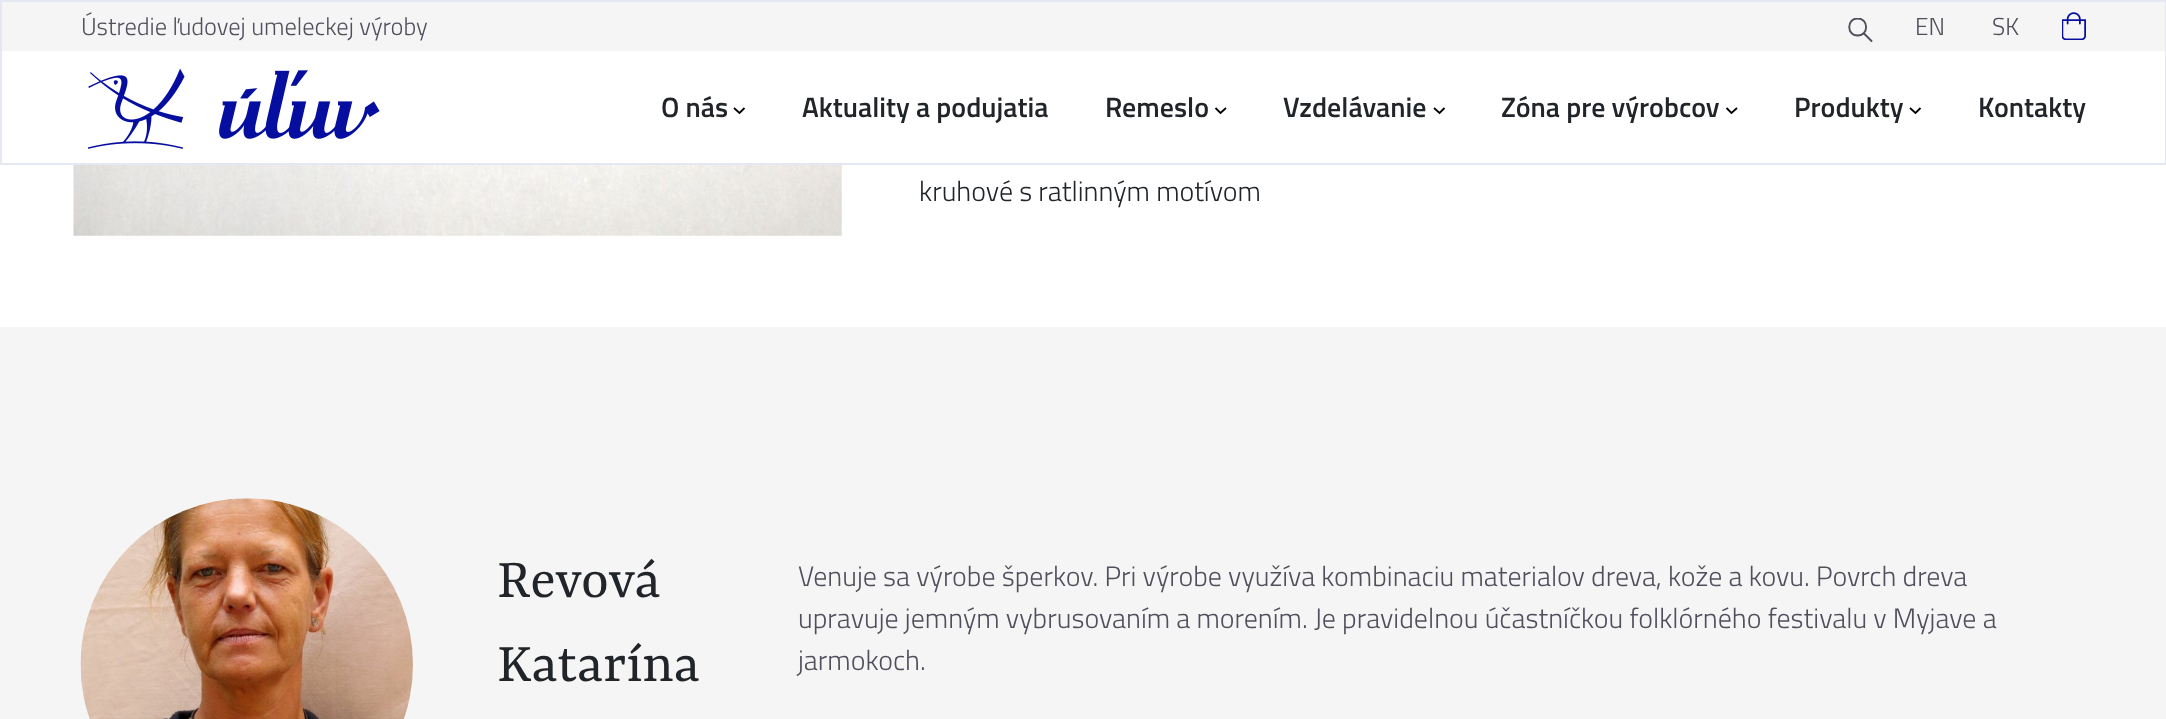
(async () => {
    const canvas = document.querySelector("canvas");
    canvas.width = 2166;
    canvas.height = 719;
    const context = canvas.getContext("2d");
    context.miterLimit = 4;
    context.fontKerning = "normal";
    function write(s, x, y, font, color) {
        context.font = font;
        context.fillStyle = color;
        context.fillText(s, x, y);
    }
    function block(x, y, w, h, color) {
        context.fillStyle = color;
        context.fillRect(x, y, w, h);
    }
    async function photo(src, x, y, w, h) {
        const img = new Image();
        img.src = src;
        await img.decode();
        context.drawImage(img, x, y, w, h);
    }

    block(0, 0, 2166, 719, "rgb(255, 255, 255)");
    context.strokeStyle = "rgb(229, 232, 242)";
    context.lineWidth = 2;
    context.strokeRect(1, 1, 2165, 163);
    block(2, 2, 2163, 49, "rgb(245, 245, 245)");
    write("Ústredie ľudovej umeleckej výroby", 81, 35, "300 24.5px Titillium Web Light", "rgb(80, 80, 93)");
    context.save();
    context.beginPath();
    context.rect(1848, 18, 25, 24);
    context.clip();
    context.beginPath();
    context.moveTo(1857.5, 35.5);
    context.bezierCurveTo(1869, 35.5, 1869, 18.5, 1857.5, 18.5);
    context.bezierCurveTo(1846.5, 18.5, 1846.5, 35.5, 1857.5, 35.5);
    context.closePath();
    context.strokeStyle = "rgb(80, 80, 93)";
    context.lineWidth = 1.9;
    context.lineCap = "round";
    context.lineJoin = "round";
    context.stroke();
    context.restore();
    context.beginPath();
    context.moveTo(1871.5, 41);
    context.lineTo(1864, 33.5);
    context.strokeStyle = "rgb(80, 80, 93)";
    context.lineWidth = 1.9;
    context.lineCap = "round";
    context.lineJoin = "round";
    context.stroke();
    write("EN", 1915, 35, "300 24.5px Titillium Web Light", "rgb(80, 80, 93)");
    write("SK", 1992, 35, "300 24.5px Titillium Web Light", "rgb(80, 80, 93)");
    await photo("media/1.png", 2062, 12, 24, 28);
    await photo("media/2.png", 88, 68, 292, 81);
    write("O nás", 661, 117, "600 28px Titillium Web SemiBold", "rgb(33, 37, 41)");
    context.beginPath();
    context.moveTo(734, 108);
    context.lineTo(739.5, 113);
    context.lineTo(744.5, 108);
    context.strokeStyle = "rgb(0, 0, 0)";
    context.lineWidth = 1.8;
    context.lineCap = "butt";
    context.lineJoin = "miter";
    context.stroke();
    write("Aktuality a podujatia", 802, 117, "600 28px Titillium Web SemiBold", "rgb(33, 37, 41)");
    write("Remeslo", 1105, 117, "600 28px Titillium Web SemiBold", "rgb(33, 37, 41)");
    context.beginPath();
    context.moveTo(1215.5, 108);
    context.lineTo(1220.5, 113);
    context.lineTo(1226, 108);
    context.stroke();
    write("Vzdelávanie", 1283, 117, "600 28px Titillium Web SemiBold", "rgb(33, 37, 41)");
    context.beginPath();
    context.moveTo(1434, 108);
    context.lineTo(1439.5, 113);
    context.lineTo(1444.5, 108);
    context.stroke();
    write("Zóna pre výrobcov", 1501, 117, "600 28px Titillium Web SemiBold", "rgb(33, 37, 41)");
    context.beginPath();
    context.moveTo(1726.5, 108);
    context.lineTo(1731.5, 113);
    context.lineTo(1737, 108);
    context.stroke();
    write("Produkty", 1794, 117, "600 28px Titillium Web SemiBold", "rgb(33, 37, 41)");
    context.beginPath();
    context.moveTo(1910, 108);
    context.lineTo(1915.5, 113);
    context.lineTo(1920.5, 108);
    context.stroke();
    write("Kontakty", 1978, 117, "600 28px Titillium Web SemiBold", "rgb(33, 37, 41)");
    await photo("media/3.png", 73, 165, 769, 71);
    write("kruhové s ratlinným motívom", 919, 201, "300 28px Titillium Web Light", "rgb(33, 37, 41)");
    block(0, 327, 2166, 392, "rgb(245, 245, 245)");
    await photo("media/4.png", 80, 498, 333, 221);
    write("Revová", 497, 597, "59.5px Yrsa", "rgb(33, 37, 41)");
    write("Katarína", 497, 681, "59.5px Yrsa", "rgb(33, 37, 41)");
    write("Venuje sa výrobe šperkov. Pri výrobe využíva kombinaciu materialov dreva, kože a kovu. Povrch dreva", 798, 586, "300 28px Titillium Web Light", "rgb(80, 80, 93)");
    write("upravuje jemným vybrusovaním a morením. Je pravidelnou účastníčkou folklórného festivalu v Myjave a", 798, 628, "300 28px Titillium Web Light", "rgb(80, 80, 93)");
    write("jarmokoch.", 798, 670, "300 28px Titillium Web Light", "rgb(80, 80, 93)");
})();
